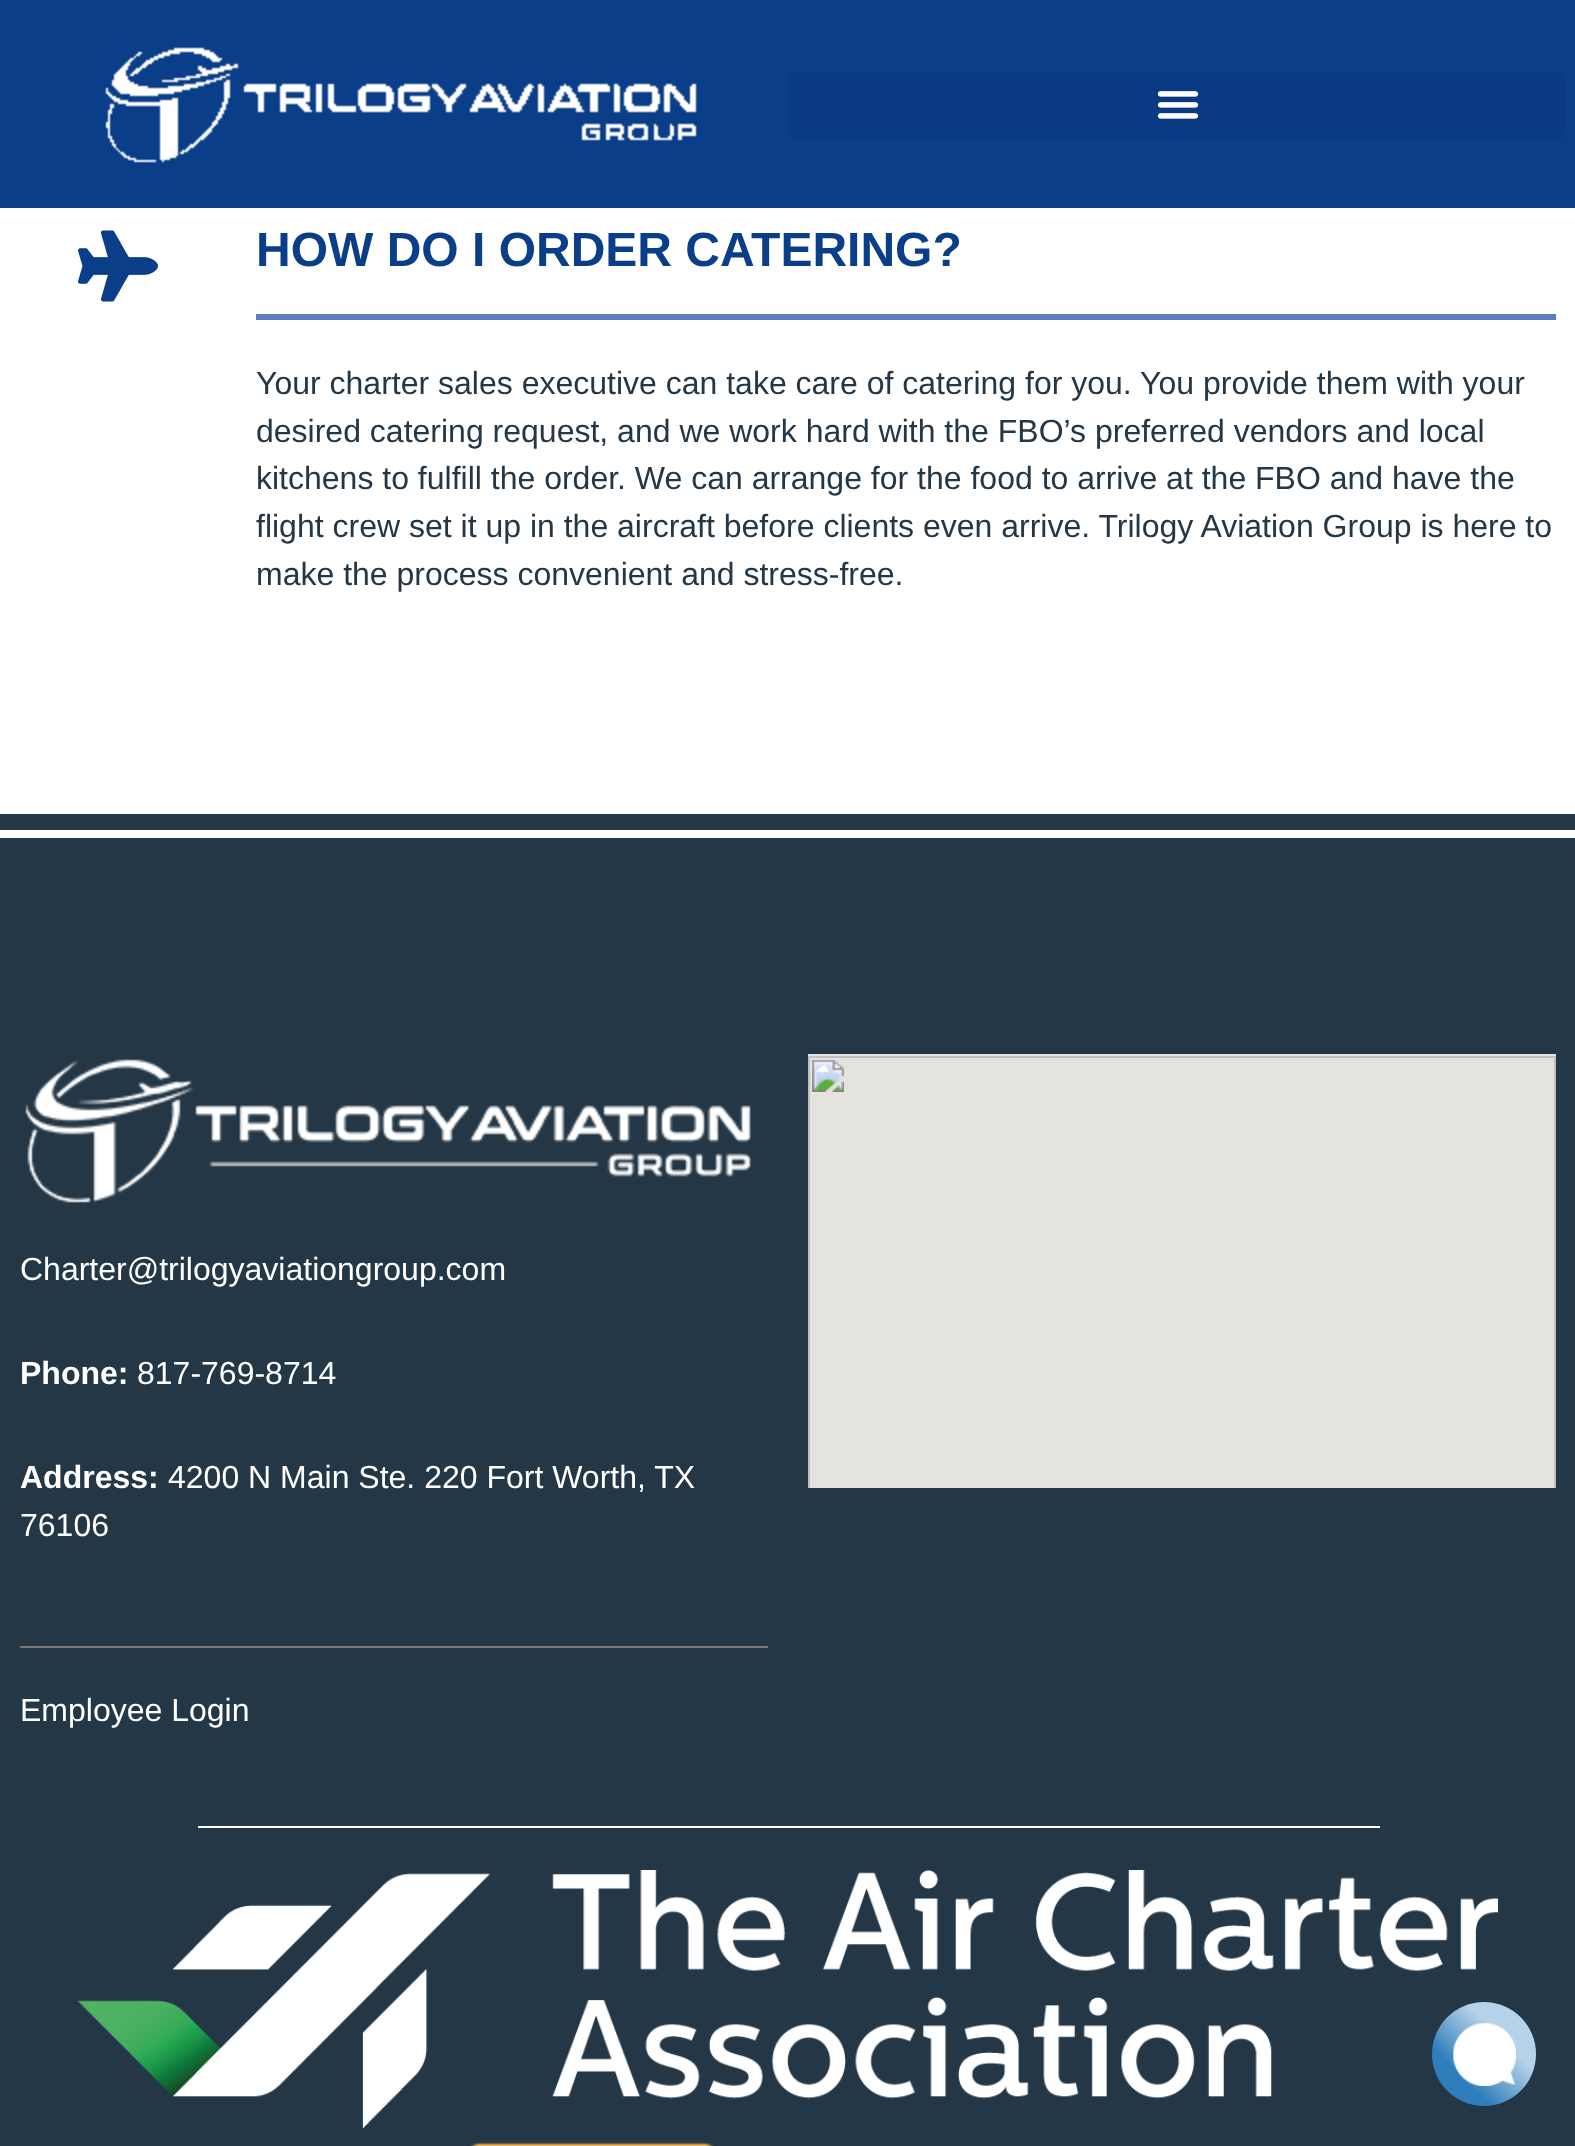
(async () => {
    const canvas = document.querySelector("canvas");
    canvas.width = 1575;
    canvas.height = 2146;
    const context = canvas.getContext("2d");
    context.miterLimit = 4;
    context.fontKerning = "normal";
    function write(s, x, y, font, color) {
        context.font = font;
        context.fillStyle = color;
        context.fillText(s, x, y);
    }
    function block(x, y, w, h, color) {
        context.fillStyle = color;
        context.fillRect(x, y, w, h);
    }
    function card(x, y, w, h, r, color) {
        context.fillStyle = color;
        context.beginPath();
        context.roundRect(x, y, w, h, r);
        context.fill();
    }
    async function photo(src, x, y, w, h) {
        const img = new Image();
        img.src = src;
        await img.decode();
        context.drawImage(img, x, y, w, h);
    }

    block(0, 0, 1575, 2146, "rgb(255, 255, 255)");
    block(0, 0, 1575, 208, "rgb(10, 62, 137)");
    await photo("media/1.png", 105, 47, 592, 116);
    card(788, 72, 778, 66, 6, "rgb(10, 59, 130)");
    await photo("media/2.png", 1157, 91, 42, 28);
    await photo("media/3.png", 78, 230, 80, 72);
    write("HOW DO I ORDER CATERING?", 256, 266, "bold 48px Liberation Sans", "rgb(10, 62, 137)");
    block(256, 314, 1300, 6, "rgb(94, 122, 194)");
    write("Your charter sales executive can take care of catering for you. You provide them with your", 256, 394, "32px Liberation Sans", "rgb(36, 55, 70)");
    write("desired catering request, and we work hard with the FBO’s preferred vendors and local", 256, 442, "32px Liberation Sans", "rgb(36, 55, 70)");
    write("kitchens to fulfill the order. We can arrange for the food to arrive at the FBO and have the", 256, 489, "32px Liberation Sans", "rgb(36, 55, 70)");
    write("flight crew set it up in the aircraft before clients even arrive. Trilogy Aviation Group is here to", 256, 537, "32px Liberation Sans", "rgb(36, 55, 70)");
    write("make the process convenient and stress-free.", 256, 585, "32px Liberation Sans", "rgb(36, 55, 70)");
    block(0, 814, 1575, 1332, "rgb(36, 55, 70)");
    block(0, 830, 1575, 8, "rgb(255, 255, 255)");
    await photo("media/4.png", 25, 1059, 726, 144);
    write("Charter@trilogyaviationgroup.com", 20, 1280, "32px Liberation Sans", "rgb(255, 255, 255)");
    write("Phone:", 20, 1384, "bold 32px Liberation Sans", "rgb(255, 255, 255)");
    write("817-769-8714", 137, 1384, "32px Liberation Sans", "rgb(255, 255, 255)");
    write("Address:", 20, 1488, "bold 32px Liberation Sans", "rgb(255, 255, 255)");
    write("4200 N Main Ste. 220 Fort Worth, TX", 168, 1488, "32px Liberation Sans", "rgb(255, 255, 255)");
    write("76106", 20, 1536, "32px Liberation Sans", "rgb(255, 255, 255)");
    block(20, 1646, 748, 2, "rgb(122, 122, 122)");
    write("Employee Login", 20, 1721, "32px Liberation Sans", "rgb(255, 255, 255)");
    await photo("media/5.png", 808, 1054, 748, 434);
    block(198, 1826, 1182, 2, "rgb(255, 255, 255)");
    await photo("media/6.png", 78, 1870, 1420, 258);
    await photo("media/7.png", 469, 2141, 246, 5);
    await photo("media/8.png", 1432, 2002, 104, 104);
})();
